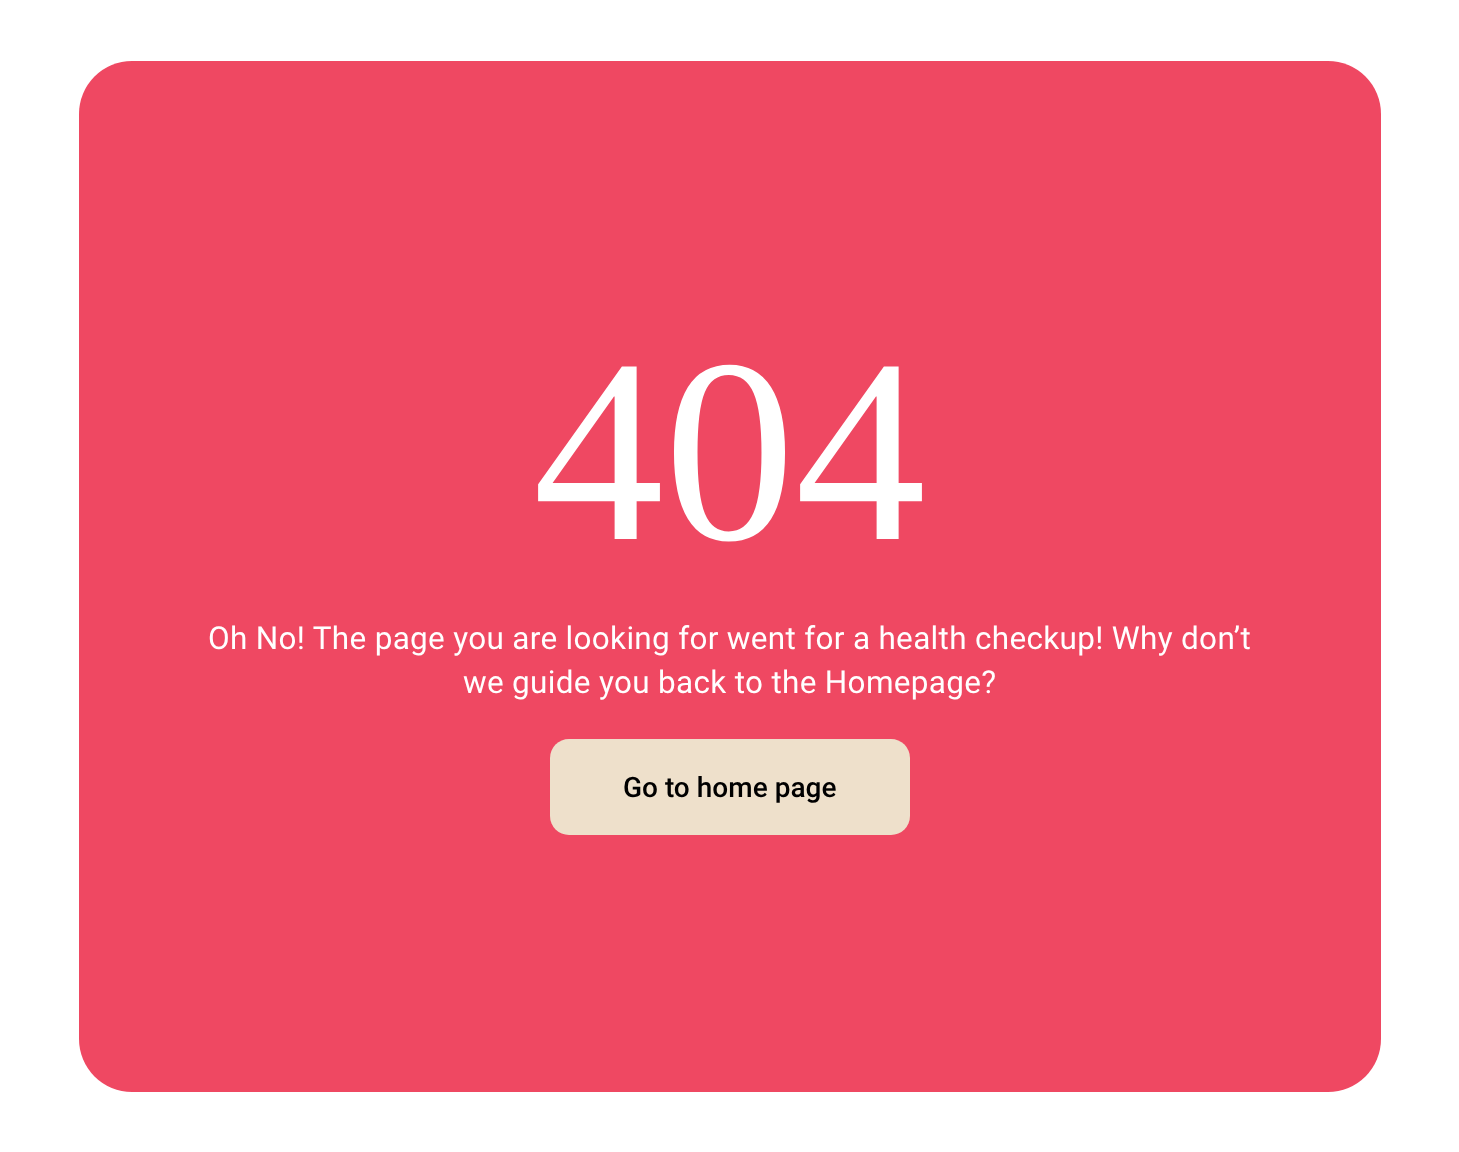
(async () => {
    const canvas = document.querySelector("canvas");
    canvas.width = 1459;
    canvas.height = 1152;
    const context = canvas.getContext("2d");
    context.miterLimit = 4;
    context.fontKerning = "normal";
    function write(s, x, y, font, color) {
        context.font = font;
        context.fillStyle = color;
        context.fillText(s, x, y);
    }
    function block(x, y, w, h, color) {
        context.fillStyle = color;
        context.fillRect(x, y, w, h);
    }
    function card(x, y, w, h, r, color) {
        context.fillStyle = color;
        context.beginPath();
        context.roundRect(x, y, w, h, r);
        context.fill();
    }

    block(0, 0, 1459, 1152, "rgb(255, 255, 255)");
    card(79, 61, 1302, 1031, 53, "rgb(239, 72, 98)");
    write("404", 533, 539, "262px Liberation Serif", "rgb(255, 255, 255)");
    context.letterSpacing = "0.32px";
    write("Oh No! The page you are looking for went for a health checkup! Why don’t", 208, 649, "31.5px Roboto", "rgb(255, 255, 255)");
    write("we guide you back to the Homepage?", 463, 693, "31.5px Roboto", "rgb(255, 255, 255)");
    card(550, 739, 360, 96, 19, "rgb(238, 224, 203)");
    context.letterSpacing = "0px";
    write("Go to home page", 623, 797, "500 28px Roboto", "rgb(0, 0, 0)");
})();
